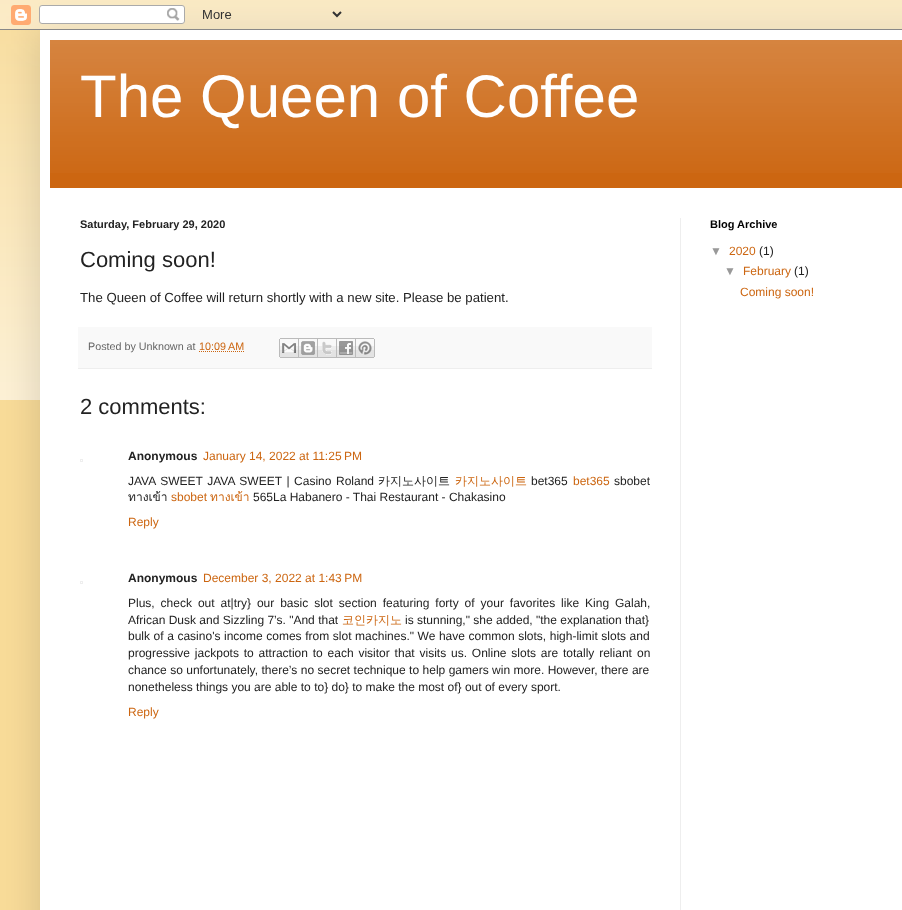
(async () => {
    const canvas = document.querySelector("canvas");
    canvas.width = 902;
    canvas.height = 910;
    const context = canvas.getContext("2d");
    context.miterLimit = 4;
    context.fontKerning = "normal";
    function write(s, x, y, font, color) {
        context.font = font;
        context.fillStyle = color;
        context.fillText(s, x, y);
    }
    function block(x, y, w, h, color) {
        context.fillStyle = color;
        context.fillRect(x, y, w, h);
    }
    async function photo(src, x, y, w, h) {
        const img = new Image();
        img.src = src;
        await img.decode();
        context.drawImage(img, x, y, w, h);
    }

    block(0, 0, 902, 910, "rgb(249, 220, 153)");
    await photo("media/1.png", 0, 0, 902, 400);
    context.fillStyle = "rgba(0, 0, 0, 0.15)";
    context.filter = "blur(20px)";
    context.beginPath();
    context.rect(40, 30, 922, 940);
    context.fill();
    context.filter = "none";
    await photo("media/2.png", 0, 0, 902, 30);
    block(40, 30, 862, 880, "rgb(255, 255, 255)");
    block(50, 40, 852, 148, "rgb(204, 102, 17)");
    await photo("media/3.png", 50, 40, 852, 133);
    write("The Queen of Coffee", 80, 117, "60px Liberation Sans", "rgb(255, 255, 255)");
    block(680, 218, 1, 692, "rgb(238, 238, 238)");
    write("Saturday, February 29, 2020", 80, 228, "bold 11px Liberation Sans", "rgb(34, 34, 34)");
    write("Coming soon!", 80, 267, "22px Liberation Sans", "rgb(34, 34, 34)");
    write("The Queen of Coffee will return shortly with a new site. Please be patient.", 80, 302, "13.2px Liberation Sans", "rgb(34, 34, 34)");
    block(78, 327, 574, 41, "rgb(249, 249, 249)");
    block(78, 368, 574, 1, "rgb(238, 238, 238)");
    write("Posted by Unknown at", 88, 350, "10.75px Liberation Sans", "rgb(102, 102, 102)");
    write("10:09 AM", 199, 350, "10.75px Liberation Sans", "rgb(204, 102, 17)");
    context.beginPath();
    context.moveTo(199, 351.5);
    context.lineTo(244.5, 351.5);
    context.strokeStyle = "rgb(204, 102, 17)";
    context.setLineDash([1, 1]);
    context.stroke();
    await photo("media/4.png", 279, 338, 20, 20);
    await photo("media/5.png", 299, 338, 19, 20);
    await photo("media/6.png", 318, 338, 19, 20);
    await photo("media/7.png", 337, 338, 19, 20);
    await photo("media/8.png", 356, 338, 19, 20);
    write("2 comments:", 80, 414, "22px Liberation Sans", "rgb(34, 34, 34)");
    context.strokeStyle = "rgb(238, 238, 238)";
    context.setLineDash([]);
    context.strokeRect(80.5, 459.5, 2, 2);
    write("Anonymous", 128, 460, "bold 12px Liberation Sans", "rgb(34, 34, 34)");
    write("January 14, 2022 at 11:25 PM", 203, 460, "12px Liberation Sans", "rgb(204, 102, 17)");
    context.wordSpacing = "1.25px";
    write("JAVA SWEET JAVA SWEET | Casino Roland", 128, 485, "12px Liberation Sans", "rgb(34, 34, 34)");
    context.wordSpacing = "0px";
    write("카지노사이트", 378, 485, "500 12px WenQuanYi Zen Hei", "rgb(34, 34, 34)");
    write("카지노사이트", 455, 485, "500 12px WenQuanYi Zen Hei", "rgb(204, 102, 17)");
    write("bet365", 531, 485, "12px Liberation Sans", "rgb(34, 34, 34)");
    write("bet365", 573, 485, "12px Liberation Sans", "rgb(204, 102, 17)");
    write("sbobet", 614, 485, "12px Liberation Sans", "rgb(34, 34, 34)");
    write("ทางเข้า", 128, 501, "12px Loma", "rgb(34, 34, 34)");
    write("sbobet", 171, 501, "12px Liberation Sans", "rgb(204, 102, 17)");
    write("ทางเข้า", 210, 501, "12px Loma", "rgb(204, 102, 17)");
    write("565La Habanero - Thai Restaurant - Chakasino", 253, 501, "12px Liberation Sans", "rgb(34, 34, 34)");
    write("Reply", 128, 526, "12px Liberation Sans", "rgb(204, 102, 17)");
    context.strokeRect(80.5, 581.5, 2, 2);
    write("Anonymous", 128, 582, "bold 12px Liberation Sans", "rgb(34, 34, 34)");
    write("December 3, 2022 at 1:43 PM", 203, 582, "12px Liberation Sans", "rgb(204, 102, 17)");
    context.wordSpacing = "2.6px";
    write("Plus, check out at|try} our basic slot section featuring forty of your favorites like King Galah,", 128, 607, "12px Liberation Sans", "rgb(34, 34, 34)");
    context.wordSpacing = "0px";
    write("African Dusk and Sizzling 7’s. \"And that", 128, 624, "12px Liberation Sans", "rgb(34, 34, 34)");
    write("코인카지노", 342, 624, "500 12px WenQuanYi Zen Hei", "rgb(204, 102, 17)");
    write("is stunning,\" she added, \"the explanation that}", 405, 624, "12px Liberation Sans", "rgb(34, 34, 34)");
    context.wordSpacing = "0.25px";
    write("bulk of a casino's income comes from slot machines.\" We have common slots, high-limit slots and", 128, 640, "12px Liberation Sans", "rgb(34, 34, 34)");
    context.wordSpacing = "1.5px";
    write("progressive jackpots to attraction to each visitor that visits us. Online slots are totally reliant", 128, 657, "12px Liberation Sans", "rgb(34, 34, 34)");
    context.wordSpacing = "0px";
    write("on", 637, 657, "12px Liberation Sans", "rgb(34, 34, 34)");
    context.wordSpacing = "0.1px";
    write("chance so unfortunately, there’s no secret technique to help gamers win more. However, there are", 128, 674, "12px Liberation Sans", "rgb(34, 34, 34)");
    context.wordSpacing = "0px";
    write("nonetheless things you are able to to} do} to make the most of} out of every sport.", 128, 691, "12px Liberation Sans", "rgb(34, 34, 34)");
    write("Reply", 128, 716, "12px Liberation Sans", "rgb(204, 102, 17)");
    write("Blog Archive", 710, 228, "bold 11px Liberation Sans", "rgb(0, 0, 0)");
    write("▼", 710, 255, "12px Liberation Sans", "rgb(153, 153, 153)");
    write("2020", 729, 255, "12px Liberation Sans", "rgb(204, 102, 17)");
    write("(1)", 759, 255, "12px Liberation Sans", "rgb(34, 34, 34)");
    write("▼", 724, 275, "12px Liberation Sans", "rgb(153, 153, 153)");
    write("February", 743, 275, "12px Liberation Sans", "rgb(204, 102, 17)");
    write("(1)", 794, 275, "12px Liberation Sans", "rgb(34, 34, 34)");
    write("Coming soon!", 740, 296, "12px Liberation Sans", "rgb(204, 102, 17)");
})();
